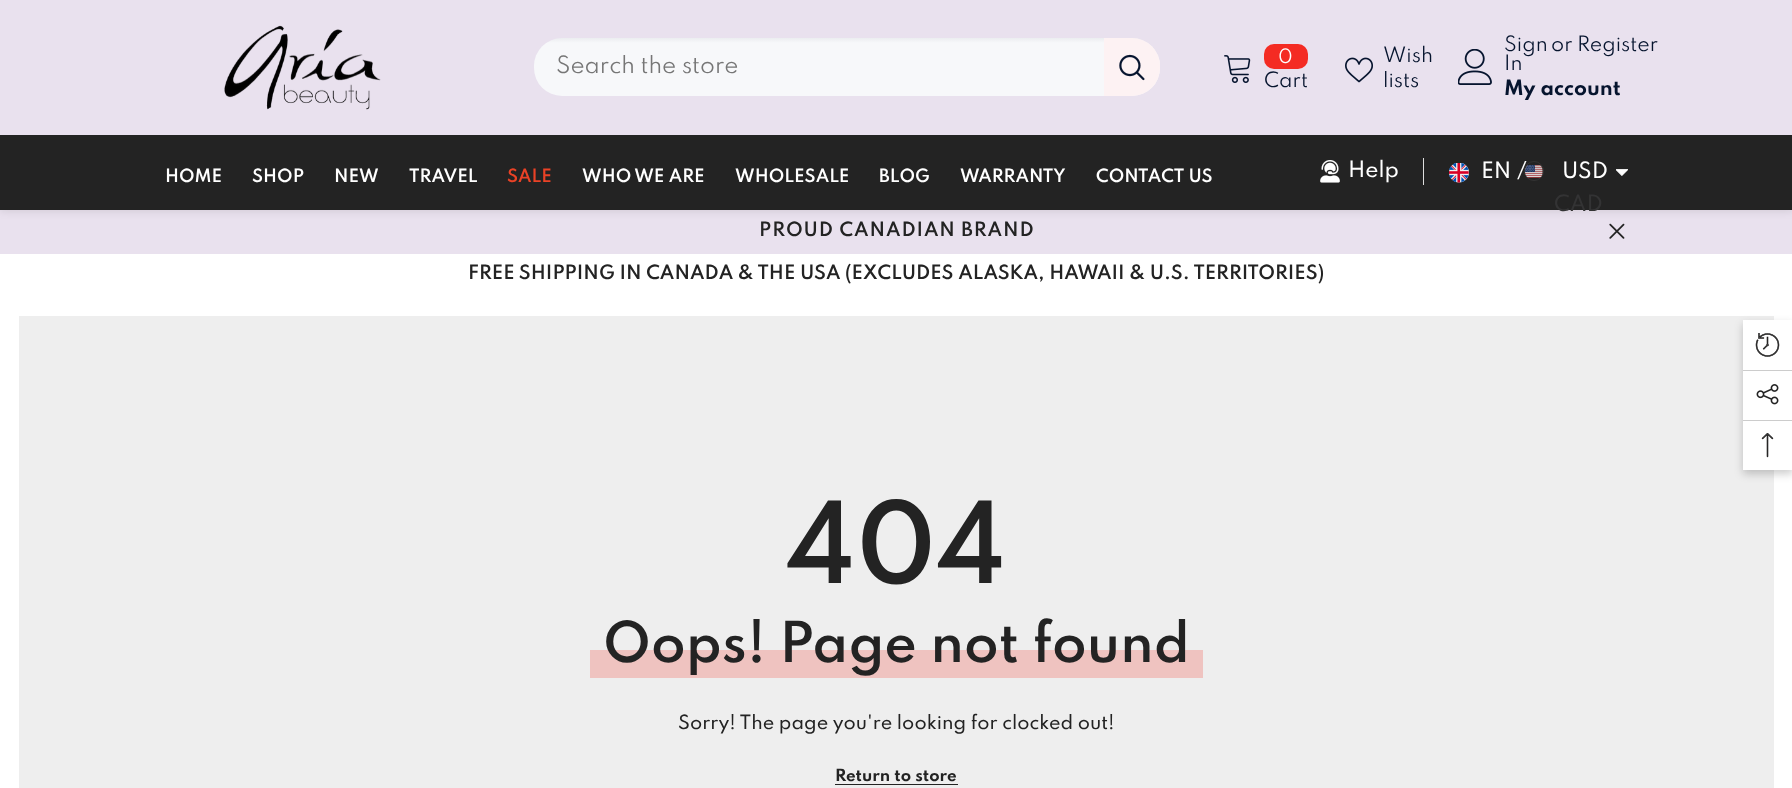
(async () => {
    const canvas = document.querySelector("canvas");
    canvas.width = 1792;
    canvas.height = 788;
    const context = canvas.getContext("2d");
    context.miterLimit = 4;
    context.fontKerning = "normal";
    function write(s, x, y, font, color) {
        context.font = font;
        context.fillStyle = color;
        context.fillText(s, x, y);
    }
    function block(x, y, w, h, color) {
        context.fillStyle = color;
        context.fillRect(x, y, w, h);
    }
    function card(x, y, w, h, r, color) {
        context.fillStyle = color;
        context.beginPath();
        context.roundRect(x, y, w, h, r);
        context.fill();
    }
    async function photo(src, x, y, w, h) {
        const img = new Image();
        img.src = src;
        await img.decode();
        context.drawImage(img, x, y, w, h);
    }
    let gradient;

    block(0, 0, 1792, 788, "rgb(255, 255, 255)");
    block(0, 210, 1792, 44, "rgb(233, 225, 238)");
    await photo("media/10.png", 1609, 223, 16, 16);
    context.fillStyle = "rgba(0, 0, 0, 0.1)";
    context.filter = "blur(4px)";
    context.beginPath();
    context.rect(0, 136, 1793, 75);
    context.fill();
    context.filter = "none";
    block(0, 0, 1792, 135, "rgb(233, 225, 238)");
    await photo("media/1.png", 224, 25, 157, 85);
    gradient = context.createLinearGradient(847, 37, 847, 96);
    gradient.addColorStop(0, "rgb(233, 235, 238)");
    gradient.addColorStop(0.1, "rgb(247, 248, 250)");
    gradient.addColorStop(1, "rgb(247, 248, 250)");
    context.fillStyle = gradient;
    context.beginPath();
    context.roundRect(534, 38, 626, 58, 28);
    context.fill();
    context.save();
    context.beginPath();
    context.rect(556, 55, 525, 25);
    context.clip();
    write("Search the store", 556, 73, "21.25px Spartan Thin", "rgb(118, 118, 118)");
    context.restore();
    context.fillStyle = "rgb(253, 242, 243)";
    context.beginPath();
    context.roundRect(1104, 38, 56, 58, [0, 28, 28, 0]);
    context.fill();
    await photo("media/2.png", 1119, 54, 26, 27);
    await photo("media/3.png", 1224, 55, 27, 28);
    card(1264, 44, 44, 25, 10, "rgb(244, 43, 35)");
    write("0", 1278, 63, "17.5px Spartan Thin", "rgb(255, 255, 255)");
    write("Cart", 1264, 87, "18.75px Spartan Thin", "rgb(6, 20, 46)");
    await photo("media/4.png", 1345, 57, 28, 26);
    write("Wish", 1383, 62, "18.75px Spartan Thin", "rgb(6, 20, 46)");
    write("lists", 1383, 87, "18.75px Spartan Thin", "rgb(6, 20, 46)");
    await photo("media/5.png", 1458, 49, 34, 36);
    write("Sign", 1504, 51, "18.75px Spartan Thin", "rgb(6, 20, 46)");
    write("In", 1504, 70, "18.75px Spartan Thin", "rgb(6, 20, 46)");
    write("or", 1551, 51, "18.75px Spartan Thin", "rgb(6, 20, 46)");
    write("Register", 1577, 51, "18.75px Spartan Thin", "rgb(6, 20, 46)");
    write("My account", 1504, 95, "bold 18.75px Spartan Thin", "rgb(6, 20, 46)");
    block(0, 135, 1792, 75, "rgb(35, 35, 35)");
    write("HOME", 165, 182, "600 16.25px Spartan Thin", "rgb(255, 255, 255)");
    write("SHOP", 252, 182, "600 16.25px Spartan Thin", "rgb(255, 255, 255)");
    write("NEW", 334, 182, "600 16.25px Spartan Thin", "rgb(255, 255, 255)");
    write("TRAVEL", 409, 182, "600 16.25px Spartan Thin", "rgb(255, 255, 255)");
    write("SALE", 507, 182, "600 16.25px Spartan Thin", "rgb(234, 66, 38)");
    write("WHO WE ARE", 582, 182, "600 16.25px Spartan Thin", "rgb(255, 255, 255)");
    write("WHOLESALE", 735, 182, "600 16.25px Spartan Thin", "rgb(255, 255, 255)");
    write("BLOG", 879, 182, "600 16.25px Spartan Thin", "rgb(255, 255, 255)");
    write("WARRANTY", 960, 182, "600 16.25px Spartan Thin", "rgb(255, 255, 255)");
    write("CONTACT US", 1096, 182, "600 16.25px Spartan Thin", "rgb(255, 255, 255)");
    await photo("media/6.png", 1320, 160, 20, 23);
    write("Help", 1348, 177, "500 20px Spartan Thin", "rgb(255, 255, 255)");
    block(1423, 158, 1, 27, "rgb(222, 222, 222)");
    await photo("media/7.png", 1449, 163, 20, 20);
    write("EN", 1481, 178, "500 20px Spartan Thin", "rgb(255, 255, 255)");
    write("/", 1517, 177, "500 18.75px Spartan Thin", "rgb(255, 255, 255)");
    context.beginPath();
    context.arc(1534, 171, 9.5, 0, Math.PI * 2);
    context.strokeStyle = "rgb(51, 51, 51)";
    context.stroke();
    await photo("media/8.png", 1525, 165, 18, 13);
    write("USD", 1562, 178, "500 20px Spartan Thin", "rgb(255, 255, 255)");
    await photo("media/9.png", 1616, 169, 12, 7);
    write("CAD", 1554, 211, "500 20px Spartan Thin", "rgb(51, 51, 52)");
    context.letterSpacing = "0.9px";
    write("PROUD CANADIAN BRAND", 759, 236, "600 17.5px Spartan Thin", "rgb(35, 35, 35)");
    context.letterSpacing = "0px";
    write("FREE SHIPPING IN CANADA & THE USA (EXCLUDES ALASKA, HAWAII & U.S. TERRITORIES)", 468, 279, "600 17.5px Spartan Thin", "rgb(35, 35, 35)");
    block(19, 316, 1755, 472, "rgb(238, 238, 238)");
    write("404", 786, 583, "600 100px Spartan Thin", "rgb(35, 35, 35)");
    block(590, 650, 613, 28, "rgb(239, 195, 192)");
    write("Oops! Page not found", 603, 662, "600 50px Spartan Thin", "rgb(35, 35, 35)");
    write("Sorry! The page you're looking for clocked out!", 678, 729, "500 17.5px Spartan Thin", "rgb(35, 35, 35)");
    write("Return to store", 835, 781, "bold 15px Spartan Thin", "rgb(35, 35, 35)");
    block(835, 784, 123, 1, "rgb(35, 35, 35)");
    context.fillStyle = "rgba(0, 0, 0, 0.2)";
    context.filter = "blur(4.5px)";
    context.beginPath();
    context.rect(1743, 324, 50, 150);
    context.fill();
    context.filter = "none";
    block(1743, 320, 49, 150, "rgb(255, 255, 255)");
    await photo("media/11.png", 1755, 333, 25, 24);
    block(1743, 370, 49, 1, "rgb(204, 204, 204)");
    await photo("media/12.png", 1756, 384, 23, 21);
    block(1743, 420, 49, 1, "rgb(204, 204, 204)");
    await photo("media/13.png", 1761, 433, 13, 25);
})();
